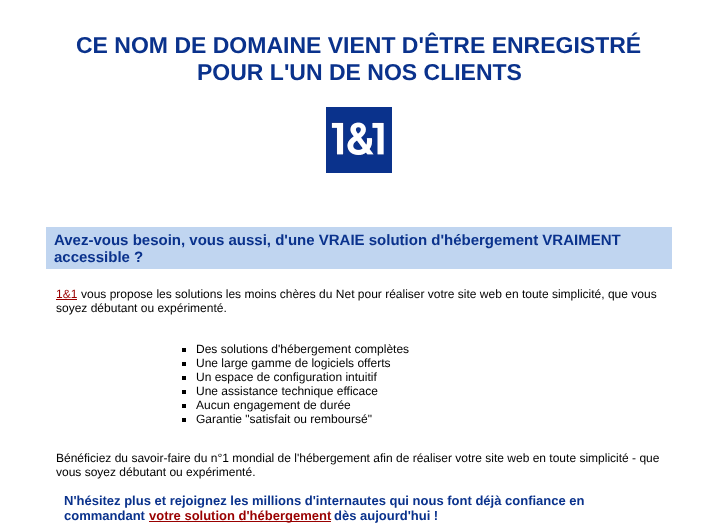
(async () => {
    const canvas = document.querySelector("canvas");
    canvas.width = 718;
    canvas.height = 528;
    const context = canvas.getContext("2d");
    context.miterLimit = 4;
    context.fontKerning = "normal";
    function write(s, x, y, font, color) {
        context.font = font;
        context.fillStyle = color;
        context.fillText(s, x, y);
    }
    function block(x, y, w, h, color) {
        context.fillStyle = color;
        context.fillRect(x, y, w, h);
    }
    async function photo(src, x, y, w, h) {
        const img = new Image();
        img.src = src;
        await img.decode();
        context.drawImage(img, x, y, w, h);
    }

    block(0, 0, 718, 528, "rgb(255, 255, 255)");
    write("CE NOM DE DOMAINE VIENT D'ÊTRE ENREGISTRÉ", 76, 53, "bold 23px Liberation Sans", "rgb(10, 50, 140)");
    write("POUR L'UN DE NOS CLIENTS", 197, 80, "bold 23px Liberation Sans", "rgb(10, 50, 140)");
    await photo("media/1.png", 326, 107, 66, 66);
    block(46, 227, 626, 42, "rgb(192, 213, 240)");
    write("Avez-vous besoin, vous aussi, d'une VRAIE solution d'hébergement VRAIMENT", 54, 245, "bold 15px Liberation Sans", "rgb(10, 50, 140)");
    write("accessible ?", 54, 262, "bold 15px Liberation Sans", "rgb(10, 50, 140)");
    write("1&1", 56, 298, "12px Liberation Sans", "rgb(153, 0, 0)");
    block(56, 299, 21, 1, "rgb(153, 0, 0)");
    write("vous propose les solutions les moins chères du Net pour réaliser votre site web en toute simplicité, que vous", 81, 298, "12px Liberation Sans", "rgb(0, 0, 0)");
    write("soyez débutant ou expérimenté.", 56, 312, "12px Liberation Sans", "rgb(0, 0, 0)");
    block(182, 348, 4, 4, "rgb(0, 0, 0)");
    write("Des solutions d'hébergement complètes", 196, 353, "12px Liberation Sans", "rgb(0, 0, 0)");
    block(182, 362, 4, 4, "rgb(0, 0, 0)");
    write("Une large gamme de logiciels offerts", 196, 367, "12px Liberation Sans", "rgb(0, 0, 0)");
    block(182, 376, 4, 4, "rgb(0, 0, 0)");
    write("Un espace de configuration intuitif", 196, 381, "12px Liberation Sans", "rgb(0, 0, 0)");
    block(182, 390, 4, 4, "rgb(0, 0, 0)");
    write("Une assistance technique efficace", 196, 395, "12px Liberation Sans", "rgb(0, 0, 0)");
    block(182, 404, 4, 4, "rgb(0, 0, 0)");
    write("Aucun engagement de durée", 196, 409, "12px Liberation Sans", "rgb(0, 0, 0)");
    block(182, 418, 4, 4, "rgb(0, 0, 0)");
    write("Garantie \"satisfait ou remboursé\"", 196, 423, "12px Liberation Sans", "rgb(0, 0, 0)");
    write("Bénéficiez du savoir-faire du n°1 mondial de l'hébergement afin de réaliser votre site web en toute simplicité - que", 56, 462, "12px Liberation Sans", "rgb(0, 0, 0)");
    write("vous soyez débutant ou expérimenté.", 56, 476, "12px Liberation Sans", "rgb(0, 0, 0)");
    write("N'hésitez plus et rejoignez les millions d'internautes qui nous font déjà confiance en", 64, 505, "bold 13px Liberation Sans", "rgb(10, 50, 140)");
    write("commandant", 64, 520, "bold 13px Liberation Sans", "rgb(10, 50, 140)");
    block(149, 521, 182, 1, "rgb(153, 0, 0)");
    write("votre solution d'hébergement", 149, 520, "bold 13px Liberation Sans", "rgb(153, 0, 0)");
    write("dès aujourd'hui !", 334, 520, "bold 13px Liberation Sans", "rgb(10, 50, 140)");
})();
